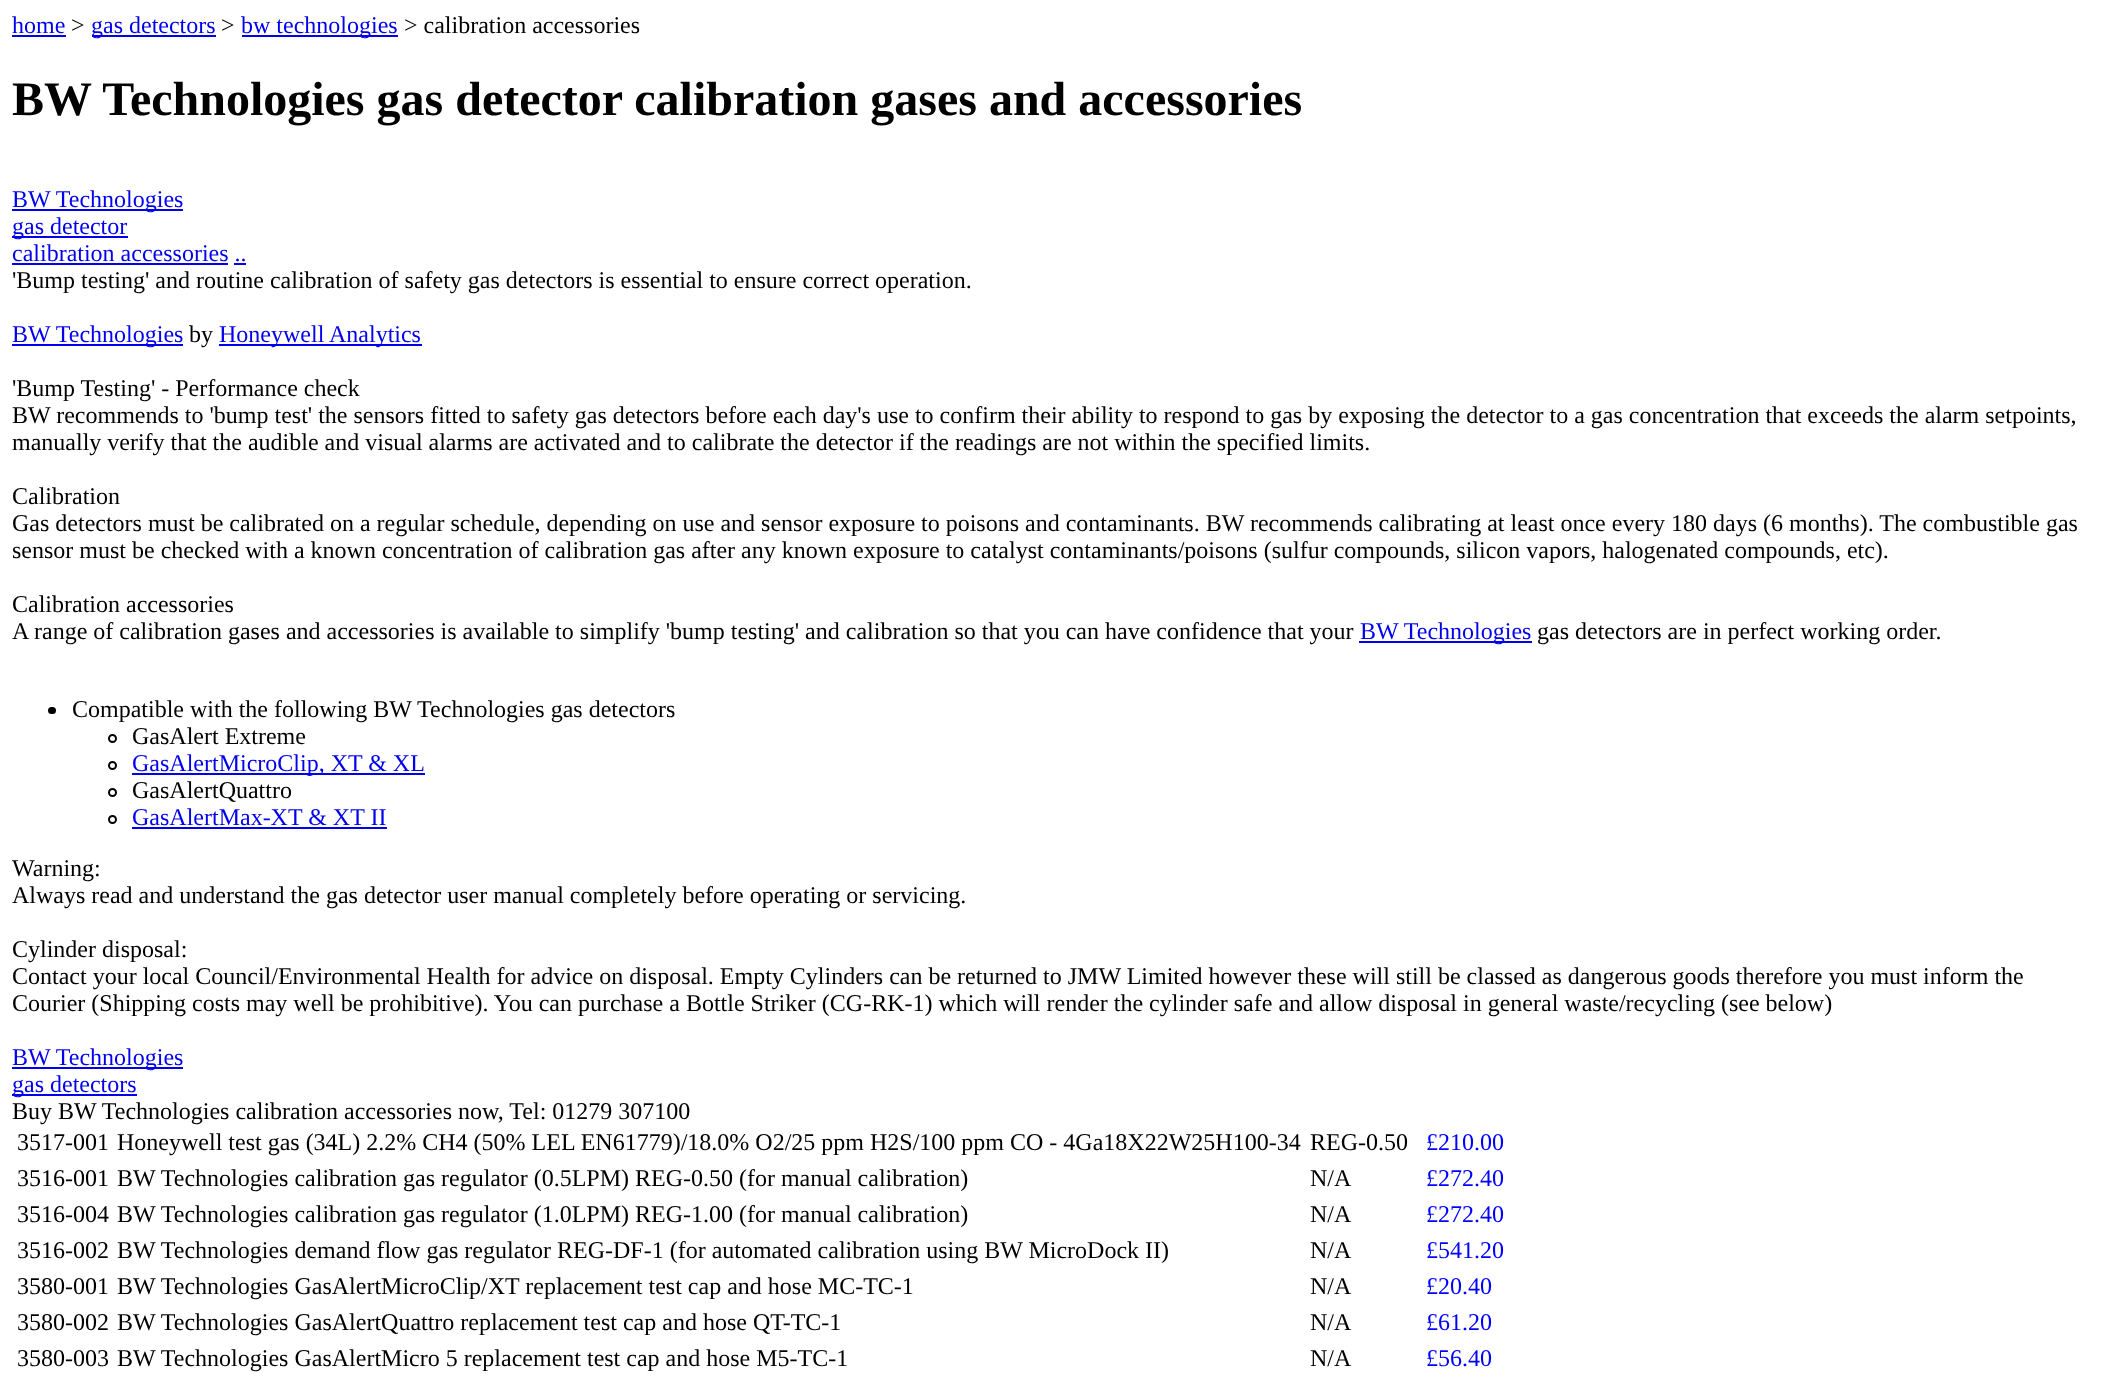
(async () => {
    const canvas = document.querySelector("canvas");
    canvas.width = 2106;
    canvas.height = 1387;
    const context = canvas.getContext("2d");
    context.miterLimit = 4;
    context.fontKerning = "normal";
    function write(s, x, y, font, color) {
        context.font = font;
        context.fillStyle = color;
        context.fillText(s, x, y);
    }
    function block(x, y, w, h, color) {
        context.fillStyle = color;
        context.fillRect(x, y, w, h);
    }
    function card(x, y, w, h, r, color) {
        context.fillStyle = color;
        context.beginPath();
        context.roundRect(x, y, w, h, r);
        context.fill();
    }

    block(0, 0, 2106, 1387, "rgb(255, 255, 255)");
    write("home", 12, 33, "24px Liberation Serif", "rgb(0, 0, 238)");
    block(12, 35, 54, 2, "rgb(0, 0, 238)");
    write(">", 71, 33, "24px Liberation Serif", "rgb(0, 0, 0)");
    block(92, 35, 124, 2, "rgb(0, 0, 238)");
    write("gas detectors", 91, 33, "24px Liberation Serif", "rgb(0, 0, 238)");
    write(">", 221, 33, "24px Liberation Serif", "rgb(0, 0, 0)");
    block(242, 35, 156, 2, "rgb(0, 0, 238)");
    write("bw technologies", 241, 33, "24px Liberation Serif", "rgb(0, 0, 238)");
    write("> calibration accessories", 404, 33, "24px Liberation Serif", "rgb(0, 0, 0)");
    write("BW Technologies gas detector calibration gases and accessories", 12, 115, "bold 48px Liberation Serif", "rgb(0, 0, 0)");
    block(12, 209, 171, 2, "rgb(0, 0, 238)");
    write("BW Technologies", 12, 207, "24px Liberation Serif", "rgb(0, 0, 238)");
    block(12, 236, 116, 2, "rgb(0, 0, 238)");
    write("gas detector", 12, 234, "24px Liberation Serif", "rgb(0, 0, 238)");
    write("calibration accessories ..", 12, 261, "24px Liberation Serif", "rgb(0, 0, 238)");
    block(12, 263, 216, 2, "rgb(0, 0, 238)");
    block(234, 263, 12, 2, "rgb(0, 0, 238)");
    write("'Bump testing' and routine calibration of safety gas detectors is essential to ensure correct operation.", 12, 288, "24px Liberation Serif", "rgb(0, 0, 0)");
    block(12, 344, 171, 2, "rgb(0, 0, 238)");
    write("BW Technologies", 12, 342, "24px Liberation Serif", "rgb(0, 0, 238)");
    write("by", 189, 342, "24px Liberation Serif", "rgb(0, 0, 0)");
    block(219, 344, 203, 2, "rgb(0, 0, 238)");
    write("Honeywell Analytics", 219, 342, "24px Liberation Serif", "rgb(0, 0, 238)");
    write("'Bump Testing' - Performance check", 12, 396, "24px Liberation Serif", "rgb(0, 0, 0)");
    write("BW recommends to 'bump test' the sensors fitted to safety gas detectors before each day's use to confirm their ability to respond to gas by exposing the detector to a gas concentration that exceeds the alarm setpoints,", 12, 423, "24px Liberation Serif", "rgb(0, 0, 0)");
    write("manually verify that the audible and visual alarms are activated and to calibrate the detector if the readings are not within the specified limits.", 12, 450, "24px Liberation Serif", "rgb(0, 0, 0)");
    write("Calibration", 12, 504, "24px Liberation Serif", "rgb(0, 0, 0)");
    write("Gas detectors must be calibrated on a regular schedule, depending on use and sensor exposure to poisons and contaminants. BW recommends calibrating at least once every 180 days (6 months). The combustible gas", 12, 531, "24px Liberation Serif", "rgb(0, 0, 0)");
    write("sensor must be checked with a known concentration of calibration gas after any known exposure to catalyst contaminants/poisons (sulfur compounds, silicon vapors, halogenated compounds, etc).", 12, 558, "24px Liberation Serif", "rgb(0, 0, 0)");
    write("Calibration accessories", 12, 612, "24px Liberation Serif", "rgb(0, 0, 0)");
    write("A range of calibration gases and accessories is available to simplify 'bump testing' and calibration so that you can have confidence that your", 12, 639, "24px Liberation Serif", "rgb(0, 0, 0)");
    block(1359, 641, 173, 2, "rgb(0, 0, 238)");
    write("BW Technologies", 1360, 639, "24px Liberation Serif", "rgb(0, 0, 238)");
    write("gas detectors are in perfect working order.", 1537, 639, "24px Liberation Serif", "rgb(0, 0, 0)");
    card(48, 707, 8, 7, 3.5, "rgb(0, 0, 0)");
    write("Compatible with the following BW Technologies gas detectors", 72, 717, "24px Liberation Serif", "rgb(0, 0, 0)");
    context.beginPath();
    context.arc(112.5, 738.5, 3.5, 0, Math.PI * 2);
    context.strokeStyle = "rgb(0, 0, 0)";
    context.lineWidth = 2;
    context.stroke();
    write("GasAlert Extreme", 132, 744, "24px Liberation Serif", "rgb(0, 0, 0)");
    context.beginPath();
    context.arc(112.5, 765.5, 3.5, 0, Math.PI * 2);
    context.stroke();
    block(132, 773, 293, 2, "rgb(0, 0, 238)");
    write("GasAlertMicroClip, XT & XL", 132, 771, "24px Liberation Serif", "rgb(0, 0, 238)");
    context.beginPath();
    context.arc(112.5, 792.5, 3.5, 0, Math.PI * 2);
    context.stroke();
    write("GasAlertQuattro", 132, 798, "24px Liberation Serif", "rgb(0, 0, 0)");
    context.beginPath();
    context.arc(112.5, 819.5, 3.5, 0, Math.PI * 2);
    context.stroke();
    write("GasAlertMax-XT & XT II", 132, 825, "24px Liberation Serif", "rgb(0, 0, 238)");
    block(132, 827, 255, 2, "rgb(0, 0, 238)");
    write("Warning:", 12, 876, "24px Liberation Serif", "rgb(0, 0, 0)");
    write("Always read and understand the gas detector user manual completely before operating or servicing.", 12, 903, "24px Liberation Serif", "rgb(0, 0, 0)");
    write("Cylinder disposal:", 12, 957, "24px Liberation Serif", "rgb(0, 0, 0)");
    write("Contact your local Council/Environmental Health for advice on disposal. Empty Cylinders can be returned to JMW Limited however these will still be classed as dangerous goods therefore you must inform the", 12, 984, "24px Liberation Serif", "rgb(0, 0, 0)");
    write("Courier (Shipping costs may well be prohibitive). You can purchase a Bottle Striker (CG-RK-1) which will render the cylinder safe and allow disposal in general waste/recycling (see below)", 12, 1011, "24px Liberation Serif", "rgb(0, 0, 0)");
    block(12, 1067, 171, 2, "rgb(0, 0, 238)");
    write("BW Technologies", 12, 1065, "24px Liberation Serif", "rgb(0, 0, 238)");
    block(12, 1094, 125, 2, "rgb(0, 0, 238)");
    write("gas detectors", 12, 1092, "24px Liberation Serif", "rgb(0, 0, 238)");
    write("Buy BW Technologies calibration accessories now, Tel: 01279 307100", 12, 1119, "24px Liberation Serif", "rgb(0, 0, 0)");
    write("3517-001", 17, 1150, "24px Liberation Serif", "rgb(0, 0, 0)");
    write("Honeywell test gas (34L) 2.2% CH4 (50% LEL EN61779)/18.0% O2/25 ppm H2S/100 ppm CO - 4Ga18X22W25H100-34", 117, 1150, "24px Liberation Serif", "rgb(0, 0, 0)");
    write("REG-0.50", 1310, 1150, "24px Liberation Serif", "rgb(0, 0, 0)");
    write("£210.00", 1426, 1150, "24px Liberation Serif", "rgb(0, 0, 255)");
    write("3516-001", 17, 1186, "24px Liberation Serif", "rgb(0, 0, 0)");
    write("BW Technologies calibration gas regulator (0.5LPM) REG-0.50 (for manual calibration)", 117, 1186, "24px Liberation Serif", "rgb(0, 0, 0)");
    write("N/A", 1310, 1186, "24px Liberation Serif", "rgb(0, 0, 0)");
    write("£272.40", 1426, 1186, "24px Liberation Serif", "rgb(0, 0, 255)");
    write("3516-004", 17, 1222, "24px Liberation Serif", "rgb(0, 0, 0)");
    write("BW Technologies calibration gas regulator (1.0LPM) REG-1.00 (for manual calibration)", 117, 1222, "24px Liberation Serif", "rgb(0, 0, 0)");
    write("N/A", 1310, 1222, "24px Liberation Serif", "rgb(0, 0, 0)");
    write("£272.40", 1426, 1222, "24px Liberation Serif", "rgb(0, 0, 255)");
    write("3516-002", 17, 1258, "24px Liberation Serif", "rgb(0, 0, 0)");
    write("BW Technologies demand flow gas regulator REG-DF-1 (for automated calibration using BW MicroDock II)", 117, 1258, "24px Liberation Serif", "rgb(0, 0, 0)");
    write("N/A", 1310, 1258, "24px Liberation Serif", "rgb(0, 0, 0)");
    write("£541.20", 1426, 1258, "24px Liberation Serif", "rgb(0, 0, 255)");
    write("3580-001", 17, 1294, "24px Liberation Serif", "rgb(0, 0, 0)");
    write("BW Technologies GasAlertMicroClip/XT replacement test cap and hose MC-TC-1", 117, 1294, "24px Liberation Serif", "rgb(0, 0, 0)");
    write("N/A", 1310, 1294, "24px Liberation Serif", "rgb(0, 0, 0)");
    write("£20.40", 1426, 1294, "24px Liberation Serif", "rgb(0, 0, 255)");
    write("3580-002", 17, 1330, "24px Liberation Serif", "rgb(0, 0, 0)");
    write("BW Technologies GasAlertQuattro replacement test cap and hose QT-TC-1", 117, 1330, "24px Liberation Serif", "rgb(0, 0, 0)");
    write("N/A", 1310, 1330, "24px Liberation Serif", "rgb(0, 0, 0)");
    write("£61.20", 1426, 1330, "24px Liberation Serif", "rgb(0, 0, 255)");
    write("3580-003", 17, 1366, "24px Liberation Serif", "rgb(0, 0, 0)");
    write("BW Technologies GasAlertMicro 5 replacement test cap and hose M5-TC-1", 117, 1366, "24px Liberation Serif", "rgb(0, 0, 0)");
    write("N/A", 1310, 1366, "24px Liberation Serif", "rgb(0, 0, 0)");
    write("£56.40", 1426, 1366, "24px Liberation Serif", "rgb(0, 0, 255)");
})();
